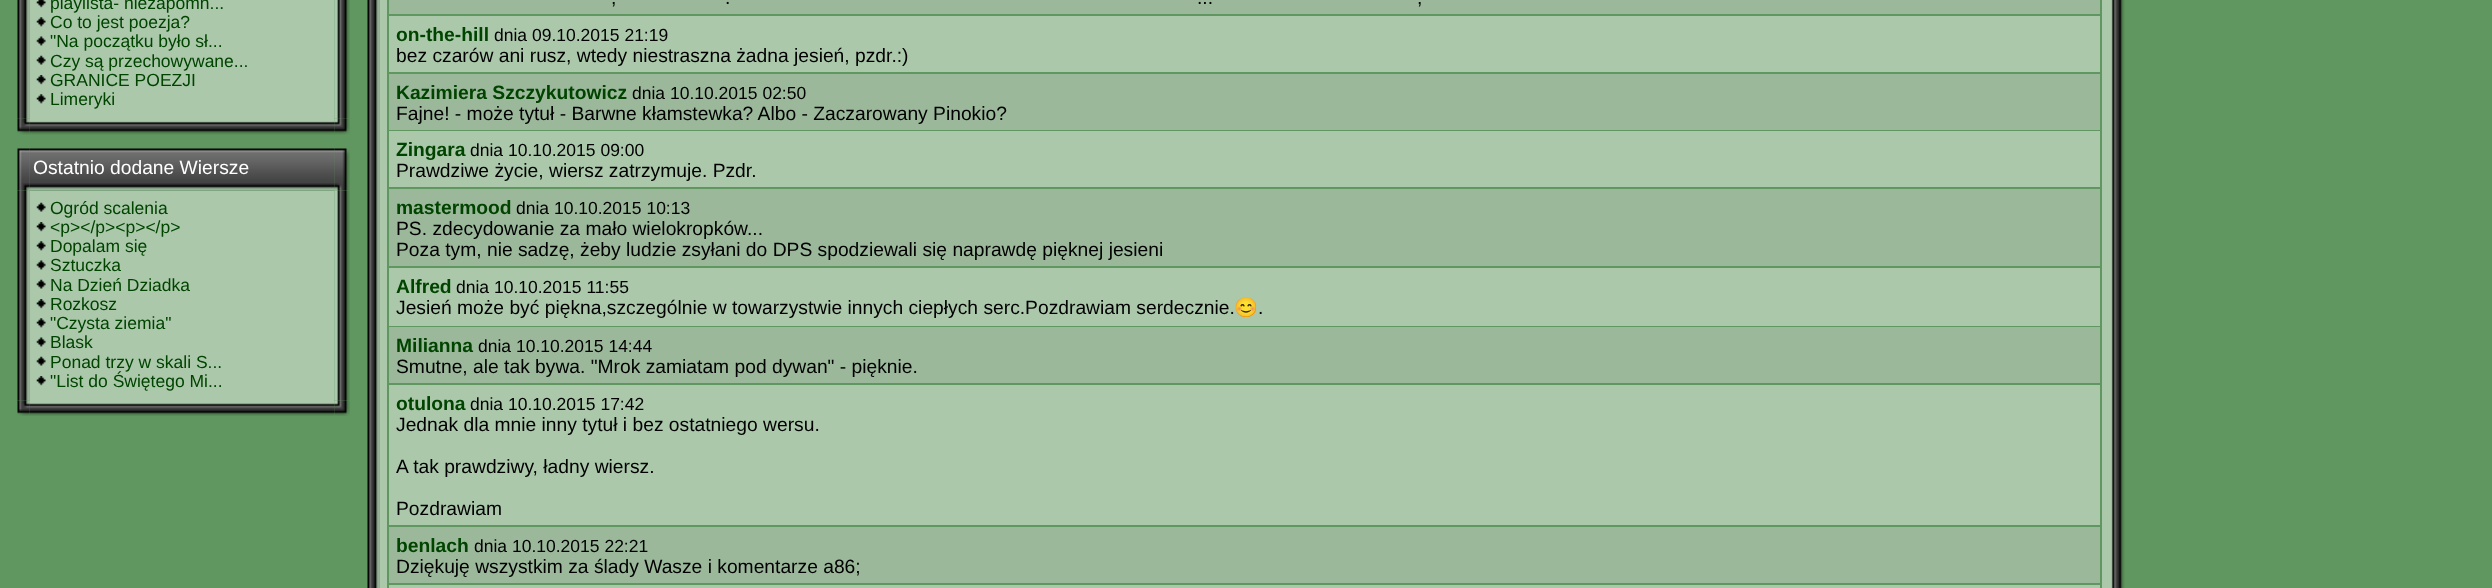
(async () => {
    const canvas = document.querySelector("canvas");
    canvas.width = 2492;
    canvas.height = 588;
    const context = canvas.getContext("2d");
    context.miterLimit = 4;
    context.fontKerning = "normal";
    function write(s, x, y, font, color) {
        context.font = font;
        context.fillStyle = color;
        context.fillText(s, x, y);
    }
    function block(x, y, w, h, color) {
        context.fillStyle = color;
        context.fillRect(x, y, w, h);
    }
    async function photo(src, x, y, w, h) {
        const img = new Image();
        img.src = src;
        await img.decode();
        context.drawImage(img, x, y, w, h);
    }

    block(0, 0, 2492, 588, "rgb(96, 151, 96)");
    await photo("media/1.png", 17, 0, 13, 119);
    block(30, 0, 304, 119, "rgb(171, 200, 171)");
    await photo("media/2.png", 36, 0, 10, 8);
    write("playlista- niezapomn...", 50, 9, "17.5px Liberation Sans", "rgb(0, 68, 0)");
    await photo("media/3.png", 36, 17, 10, 10);
    write("Co to jest poezja?", 50, 28, "17.5px Liberation Sans", "rgb(0, 68, 0)");
    await photo("media/4.png", 36, 36, 10, 10);
    write("\"Na początku było sł...", 50, 47, "17.5px Liberation Sans", "rgb(0, 68, 0)");
    await photo("media/5.png", 36, 55, 10, 10);
    write("Czy są przechowywane...", 50, 67, "17.5px Liberation Sans", "rgb(0, 68, 0)");
    await photo("media/6.png", 36, 75, 10, 10);
    write("GRANICE POEZJI", 50, 86, "17.5px Liberation Sans", "rgb(0, 68, 0)");
    await photo("media/3.png", 36, 94, 10, 10);
    write("Limeryki", 50, 105, "17.5px Liberation Sans", "rgb(0, 68, 0)");
    await photo("media/7.png", 334, 0, 16, 119);
    await photo("media/8.png", 17, 118, 13, 17);
    await photo("media/9.png", 29, 119, 306, 16);
    await photo("media/10.png", 334, 118, 16, 17);
    await photo("media/11.png", 17, 148, 13, 43);
    await photo("media/12.png", 29, 148, 306, 43);
    write("Ostatnio dodane Wiersze", 33, 174, "19.25px Liberation Sans", "rgb(255, 255, 255)");
    await photo("media/13.png", 334, 148, 16, 43);
    await photo("media/14.png", 17, 190, 13, 211);
    block(30, 191, 304, 210, "rgb(171, 200, 171)");
    await photo("media/5.png", 36, 202, 10, 10);
    write("Ogród scalenia", 50, 214, "17.5px Liberation Sans", "rgb(0, 68, 0)");
    await photo("media/6.png", 36, 222, 10, 10);
    write("<p><\/p><p><\/p>", 50, 233, "17.5px Liberation Sans", "rgb(0, 68, 0)");
    await photo("media/3.png", 36, 241, 10, 10);
    write("Dopalam się", 50, 252, "17.5px Liberation Sans", "rgb(0, 68, 0)");
    await photo("media/4.png", 36, 260, 10, 10);
    write("Sztuczka", 50, 271, "17.5px Liberation Sans", "rgb(0, 68, 0)");
    await photo("media/5.png", 36, 279, 10, 10);
    write("Na Dzień Dziadka", 50, 291, "17.5px Liberation Sans", "rgb(0, 68, 0)");
    await photo("media/6.png", 36, 299, 10, 10);
    write("Rozkosz", 50, 310, "17.5px Liberation Sans", "rgb(0, 68, 0)");
    await photo("media/3.png", 36, 318, 10, 10);
    write("\"Czysta ziemia\"", 50, 329, "17.5px Liberation Sans", "rgb(0, 68, 0)");
    await photo("media/4.png", 36, 337, 10, 10);
    write("Blask", 50, 348, "17.5px Liberation Sans", "rgb(0, 68, 0)");
    await photo("media/5.png", 36, 356, 10, 10);
    write("Ponad trzy w skali S...", 50, 368, "17.5px Liberation Sans", "rgb(0, 68, 0)");
    await photo("media/6.png", 36, 376, 10, 10);
    write("\"List do Świętego Mi...", 50, 387, "17.5px Liberation Sans", "rgb(0, 68, 0)");
    await photo("media/15.png", 334, 190, 16, 211);
    await photo("media/16.png", 17, 400, 13, 16);
    await photo("media/17.png", 29, 400, 306, 16);
    await photo("media/18.png", 334, 400, 16, 16);
    await photo("media/19.png", 367, 0, 13, 588);
    block(380, 0, 1729, 588, "rgb(171, 200, 171)");
    block(387, 0, 1715, 588, "rgb(96, 151, 96)");
    block(389, 0, 1711, 14, "rgb(155, 184, 155)");
    write(",", 611, 4, "19.25px Liberation Sans", "rgb(0, 0, 0)");
    write(".", 725, 4, "19.25px Liberation Sans", "rgb(0, 0, 0)");
    write("...", 1197, 4, "19.25px Liberation Sans", "rgb(0, 0, 0)");
    write(",", 1417, 4, "19.25px Liberation Sans", "rgb(0, 0, 0)");
    block(389, 16, 1711, 56, "rgb(171, 200, 171)");
    write("on-the-hill", 396, 41, "bold 19.25px Liberation Sans", "rgb(0, 68, 0)");
    write("dnia 09.10.2015 21:19", 494, 41, "17.5px Liberation Sans", "rgb(0, 0, 0)");
    write("bez czarów ani rusz, wtedy niestraszna żadna jesień, pzdr.:)", 396, 62, "19.25px Liberation Sans", "rgb(0, 0, 0)");
    block(389, 74, 1711, 56, "rgb(155, 184, 155)");
    write("Kazimiera Szczykutowicz", 396, 99, "bold 19.25px Liberation Sans", "rgb(0, 68, 0)");
    write("dnia 10.10.2015 02:50", 632, 99, "17.5px Liberation Sans", "rgb(0, 0, 0)");
    write("Fajne! - może tytuł - Barwne kłamstewka? Albo - Zaczarowany Pinokio?", 396, 120, "19.25px Liberation Sans", "rgb(0, 0, 0)");
    block(389, 131, 1711, 56, "rgb(171, 200, 171)");
    write("Zingara", 396, 156, "bold 19.25px Liberation Sans", "rgb(0, 68, 0)");
    write("dnia 10.10.2015 09:00", 470, 156, "17.5px Liberation Sans", "rgb(0, 0, 0)");
    write("Prawdziwe życie, wiersz zatrzymuje. Pzdr.", 396, 177, "19.25px Liberation Sans", "rgb(0, 0, 0)");
    block(389, 189, 1711, 77, "rgb(155, 184, 155)");
    write("mastermood", 396, 214, "bold 19.25px Liberation Sans", "rgb(0, 68, 0)");
    write("dnia 10.10.2015 10:13", 516, 214, "17.5px Liberation Sans", "rgb(0, 0, 0)");
    write("PS. zdecydowanie za mało wielokropków...", 396, 235, "19.25px Liberation Sans", "rgb(0, 0, 0)");
    write("Poza tym, nie sadzę, żeby ludzie zsyłani do DPS spodziewali się naprawdę pięknej jesieni", 396, 256, "19.25px Liberation Sans", "rgb(0, 0, 0)");
    block(389, 268, 1711, 58, "rgb(171, 200, 171)");
    write("Alfred", 396, 293, "bold 19.25px Liberation Sans", "rgb(0, 68, 0)");
    write("dnia 10.10.2015 11:55", 456, 293, "17.5px Liberation Sans", "rgb(0, 0, 0)");
    write("Jesień może być piękna,szczególnie w towarzystwie innych ciepłych serc.Pozdrawiam serdecznie.", 396, 314, "19.25px Liberation Sans", "rgb(0, 0, 0)");
    write("😊", 1234, 314, "19.25px Noto Color Emoji", "rgb(0, 0, 0)");
    write(".", 1258, 314, "19.25px Liberation Sans", "rgb(0, 0, 0)");
    block(389, 327, 1711, 56, "rgb(155, 184, 155)");
    write("Milianna", 396, 352, "bold 19.25px Liberation Sans", "rgb(0, 68, 0)");
    write("dnia 10.10.2015 14:44", 478, 352, "17.5px Liberation Sans", "rgb(0, 0, 0)");
    write("Smutne, ale tak bywa. \"Mrok zamiatam pod dywan\" - pięknie.", 396, 373, "19.25px Liberation Sans", "rgb(0, 0, 0)");
    block(389, 385, 1711, 140, "rgb(171, 200, 171)");
    write("otulona", 396, 410, "bold 19.25px Liberation Sans", "rgb(0, 68, 0)");
    write("dnia 10.10.2015 17:42", 470, 410, "17.5px Liberation Sans", "rgb(0, 0, 0)");
    write("Jednak dla mnie inny tytuł i bez ostatniego wersu.", 396, 431, "19.25px Liberation Sans", "rgb(0, 0, 0)");
    write("A tak prawdziwy, ładny wiersz.", 396, 473, "19.25px Liberation Sans", "rgb(0, 0, 0)");
    write("Pozdrawiam", 396, 515, "19.25px Liberation Sans", "rgb(0, 0, 0)");
    block(389, 527, 1711, 56, "rgb(155, 184, 155)");
    write("benlach", 396, 552, "bold 19.25px Liberation Sans", "rgb(0, 68, 0)");
    write("dnia 10.10.2015 22:21", 474, 552, "17.5px Liberation Sans", "rgb(0, 0, 0)");
    write("Dziękuję wszystkim za ślady Wasze i komentarze a86;", 396, 573, "19.25px Liberation Sans", "rgb(0, 0, 0)");
    block(389, 585, 1711, 3, "rgb(171, 200, 171)");
    await photo("media/20.png", 2109, 0, 16, 588);
})();
